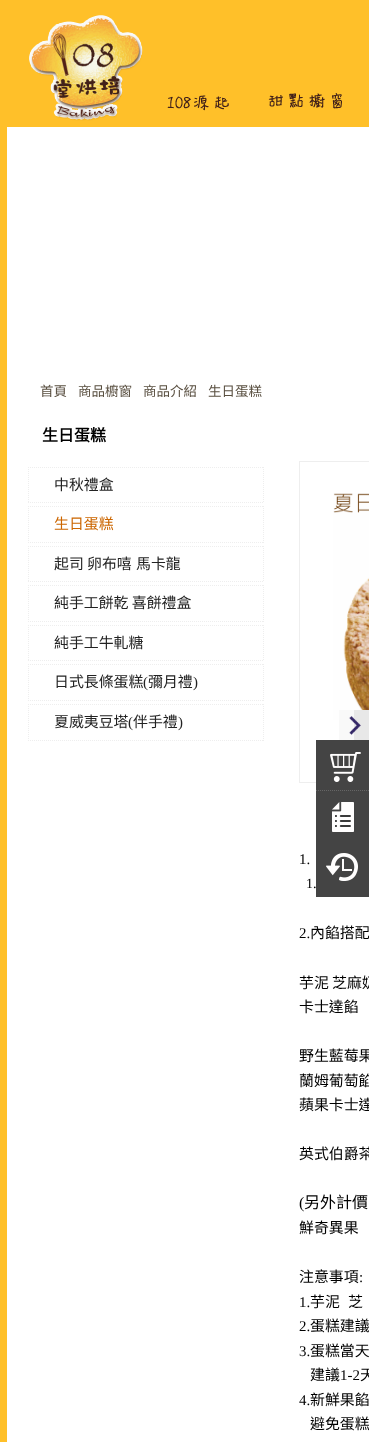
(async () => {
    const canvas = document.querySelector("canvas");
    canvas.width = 369;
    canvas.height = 1442;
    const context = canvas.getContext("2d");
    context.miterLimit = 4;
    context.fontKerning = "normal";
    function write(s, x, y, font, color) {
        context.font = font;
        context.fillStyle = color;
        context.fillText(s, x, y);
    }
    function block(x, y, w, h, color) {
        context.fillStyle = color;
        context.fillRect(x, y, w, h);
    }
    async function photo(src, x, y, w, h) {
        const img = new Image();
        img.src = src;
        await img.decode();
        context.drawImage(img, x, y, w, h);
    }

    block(0, 0, 369, 1442, "rgb(255, 192, 41)");
    await photo("media/1.png", 29, 15, 114, 106);
    await photo("media/2.png", 167, 95, 62, 16);
    await photo("media/3.png", 268, 93, 74, 16);
    block(7, 127, 362, 1315, "rgb(255, 255, 255)");
    write("首頁", 40, 396, "13.5px Noto Sans CJK TC", "rgb(89, 79, 64)");
    write("商品櫥窗", 78, 396, "13.5px Noto Sans CJK TC", "rgb(89, 79, 64)");
    write("商品介紹", 143, 396, "13.5px Noto Sans CJK TC", "rgb(89, 79, 64)");
    write("生日蛋糕", 208, 396, "13.5px Noto Sans CJK TC", "rgb(89, 79, 64)");
    write("生日蛋糕", 42, 441, "bold 16px Noto Sans CJK TC", "rgb(0, 0, 0)");
    context.beginPath();
    context.moveTo(28, 467.5);
    context.lineTo(264, 467.5);
    context.strokeStyle = "rgb(238, 238, 238)";
    context.setLineDash([1, 1]);
    context.stroke();
    context.beginPath();
    context.moveTo(263.5, 467);
    context.lineTo(263.5, 503);
    context.stroke();
    context.beginPath();
    context.moveTo(28, 502.5);
    context.lineTo(264, 502.5);
    context.stroke();
    context.beginPath();
    context.moveTo(28.5, 467);
    context.lineTo(28.5, 503);
    context.stroke();
    write("中秋禮盒", 54, 490, "14.9px Noto Sans CJK TC", "rgb(34, 34, 34)");
    context.beginPath();
    context.moveTo(28, 506.5);
    context.lineTo(264, 506.5);
    context.stroke();
    context.beginPath();
    context.moveTo(263.5, 506);
    context.lineTo(263.5, 543);
    context.stroke();
    context.beginPath();
    context.moveTo(28, 542.5);
    context.lineTo(264, 542.5);
    context.stroke();
    context.beginPath();
    context.moveTo(28.5, 506);
    context.lineTo(28.5, 543);
    context.stroke();
    write("生日蛋糕", 54, 529, "14.9px Noto Sans CJK TC", "rgb(204, 102, 0)");
    context.beginPath();
    context.moveTo(28, 546.5);
    context.lineTo(264, 546.5);
    context.stroke();
    context.beginPath();
    context.moveTo(263.5, 546);
    context.lineTo(263.5, 582);
    context.stroke();
    context.beginPath();
    context.moveTo(28, 581.5);
    context.lineTo(264, 581.5);
    context.stroke();
    context.beginPath();
    context.moveTo(28.5, 546);
    context.lineTo(28.5, 582);
    context.stroke();
    write("起司", 54, 569, "14.9px Noto Sans CJK TC", "rgb(34, 34, 34)");
    write("卵布嘻", 87, 569, "14.9px Noto Sans CJK TC", "rgb(34, 34, 34)");
    write("馬卡龍", 136, 569, "14.9px Noto Sans CJK TC", "rgb(34, 34, 34)");
    context.beginPath();
    context.moveTo(28, 585.5);
    context.lineTo(264, 585.5);
    context.stroke();
    context.beginPath();
    context.moveTo(263.5, 585);
    context.lineTo(263.5, 622);
    context.stroke();
    context.beginPath();
    context.moveTo(28, 621.5);
    context.lineTo(264, 621.5);
    context.stroke();
    context.beginPath();
    context.moveTo(28.5, 585);
    context.lineTo(28.5, 622);
    context.stroke();
    write("純手工餅乾 喜餅禮盒", 54, 608, "14.9px Noto Sans CJK TC", "rgb(34, 34, 34)");
    context.beginPath();
    context.moveTo(28, 625.5);
    context.lineTo(264, 625.5);
    context.stroke();
    context.beginPath();
    context.moveTo(263.5, 625);
    context.lineTo(263.5, 661);
    context.stroke();
    context.beginPath();
    context.moveTo(28, 660.5);
    context.lineTo(264, 660.5);
    context.stroke();
    context.beginPath();
    context.moveTo(28.5, 625);
    context.lineTo(28.5, 661);
    context.stroke();
    write("純手工牛軋糖", 54, 648, "14.9px Noto Sans CJK TC", "rgb(34, 34, 34)");
    context.beginPath();
    context.moveTo(28, 664.5);
    context.lineTo(264, 664.5);
    context.stroke();
    context.beginPath();
    context.moveTo(263.5, 664);
    context.lineTo(263.5, 701);
    context.stroke();
    context.beginPath();
    context.moveTo(28, 700.5);
    context.lineTo(264, 700.5);
    context.stroke();
    context.beginPath();
    context.moveTo(28.5, 664);
    context.lineTo(28.5, 701);
    context.stroke();
    write("日式長條蛋糕", 54, 687, "14.9px Noto Sans CJK TC", "rgb(34, 34, 34)");
    write("(", 143, 687, "14.9px Liberation Serif", "rgb(34, 34, 34)");
    write("彌月禮", 148, 687, "14.9px Noto Sans CJK TC", "rgb(34, 34, 34)");
    write(")", 193, 687, "14.9px Liberation Serif", "rgb(34, 34, 34)");
    context.beginPath();
    context.moveTo(28, 704.5);
    context.lineTo(264, 704.5);
    context.stroke();
    context.beginPath();
    context.moveTo(263.5, 704);
    context.lineTo(263.5, 741);
    context.stroke();
    context.beginPath();
    context.moveTo(28, 740.5);
    context.lineTo(264, 740.5);
    context.stroke();
    context.beginPath();
    context.moveTo(28.5, 704);
    context.lineTo(28.5, 741);
    context.stroke();
    write("夏威夷豆塔", 54, 727, "14.9px Noto Sans CJK TC", "rgb(34, 34, 34)");
    write("(", 128, 727, "14.9px Liberation Serif", "rgb(34, 34, 34)");
    write("伴手禮", 133, 727, "14.9px Noto Sans CJK TC", "rgb(34, 34, 34)");
    write(")", 178, 727, "14.9px Liberation Serif", "rgb(34, 34, 34)");
    context.setLineDash([]);
    context.strokeRect(299.5, 461.5, 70, 321);
    await photo("media/4.png", 333, 493, 36, 227);
    write("1.", 299, 864, "14.9px Liberation Serif", "rgb(0, 0, 0)");
    write("1.", 306, 888, "14px Liberation Serif", "rgb(0, 0, 0)");
    write("2.", 299, 938, "14.9px Liberation Serif", "rgb(0, 0, 0)");
    write("內餡搭配", 310, 938, "14.9px Noto Sans CJK TC", "rgb(0, 0, 0)");
    write("芋泥 芝麻奶", 299, 988, "14.9px Noto Sans CJK TC", "rgb(0, 0, 0)");
    write("卡士達餡", 299, 1012, "14.9px Noto Sans CJK TC", "rgb(0, 0, 0)");
    write("野生藍莓果", 299, 1061, "14.9px Noto Sans CJK TC", "rgb(0, 0, 0)");
    write("蘭姆葡萄餡", 299, 1086, "14.9px Noto Sans CJK TC", "rgb(0, 0, 0)");
    write("蘋果卡士達", 299, 1110, "14.9px Noto Sans CJK TC", "rgb(0, 0, 0)");
    write("英式伯爵茶", 299, 1159, "14.9px Noto Sans CJK TC", "rgb(0, 0, 0)");
    write("(", 299, 1208, "16px Liberation Serif", "rgb(0, 0, 0)");
    write("另外計價", 304, 1208, "16px Noto Sans CJK TC", "rgb(0, 0, 0)");
    write("鮮奇異果", 299, 1233, "14.9px Noto Sans CJK TC", "rgb(0, 0, 0)");
    write("注意事項", 299, 1282, "14.9px Noto Sans CJK TC", "rgb(0, 0, 0)");
    write(":", 359, 1282, "14.9px Liberation Serif", "rgb(0, 0, 0)");
    write("1.", 299, 1307, "14.9px Liberation Serif", "rgb(0, 0, 0)");
    write("芋泥", 310, 1307, "14.9px Noto Sans CJK TC", "rgb(0, 0, 0)");
    write("芝", 348, 1307, "14.9px Noto Sans CJK TC", "rgb(0, 0, 0)");
    write("2.", 299, 1331, "14.9px Liberation Serif", "rgb(0, 0, 0)");
    write("蛋糕建議", 310, 1331, "14.9px Noto Sans CJK TC", "rgb(0, 0, 0)");
    write("3.", 299, 1356, "14.9px Liberation Serif", "rgb(0, 0, 0)");
    write("蛋糕當天", 310, 1356, "14.9px Noto Sans CJK TC", "rgb(0, 0, 0)");
    write("建議", 310, 1380, "14.9px Noto Sans CJK TC", "rgb(0, 0, 0)");
    write("1-2", 340, 1380, "14.9px Liberation Serif", "rgb(0, 0, 0)");
    write("天", 360, 1380, "14.9px Noto Sans CJK TC", "rgb(0, 0, 0)");
    write("4.", 299, 1405, "14.9px Liberation Serif", "rgb(0, 0, 0)");
    write("新鮮果餡", 310, 1405, "14.9px Noto Sans CJK TC", "rgb(0, 0, 0)");
    write("避免蛋糕", 310, 1429, "14.9px Noto Sans CJK TC", "rgb(0, 0, 0)");
    await photo("media/5.png", 339, 710, 30, 30);
    block(316, 740, 53, 50, "rgb(68, 68, 68)");
    await photo("media/6.png", 330, 752, 31, 30);
    block(316, 790, 53, 107, "rgb(68, 68, 68)");
    await photo("media/7.png", 326, 853, 32, 28);
    context.beginPath();
    context.moveTo(316, 790.5);
    context.lineTo(369, 790.5);
    context.strokeStyle = "rgb(102, 102, 102)";
    context.setLineDash([1, 1]);
    context.stroke();
    await photo("media/8.png", 332, 802, 22, 30);
})();
